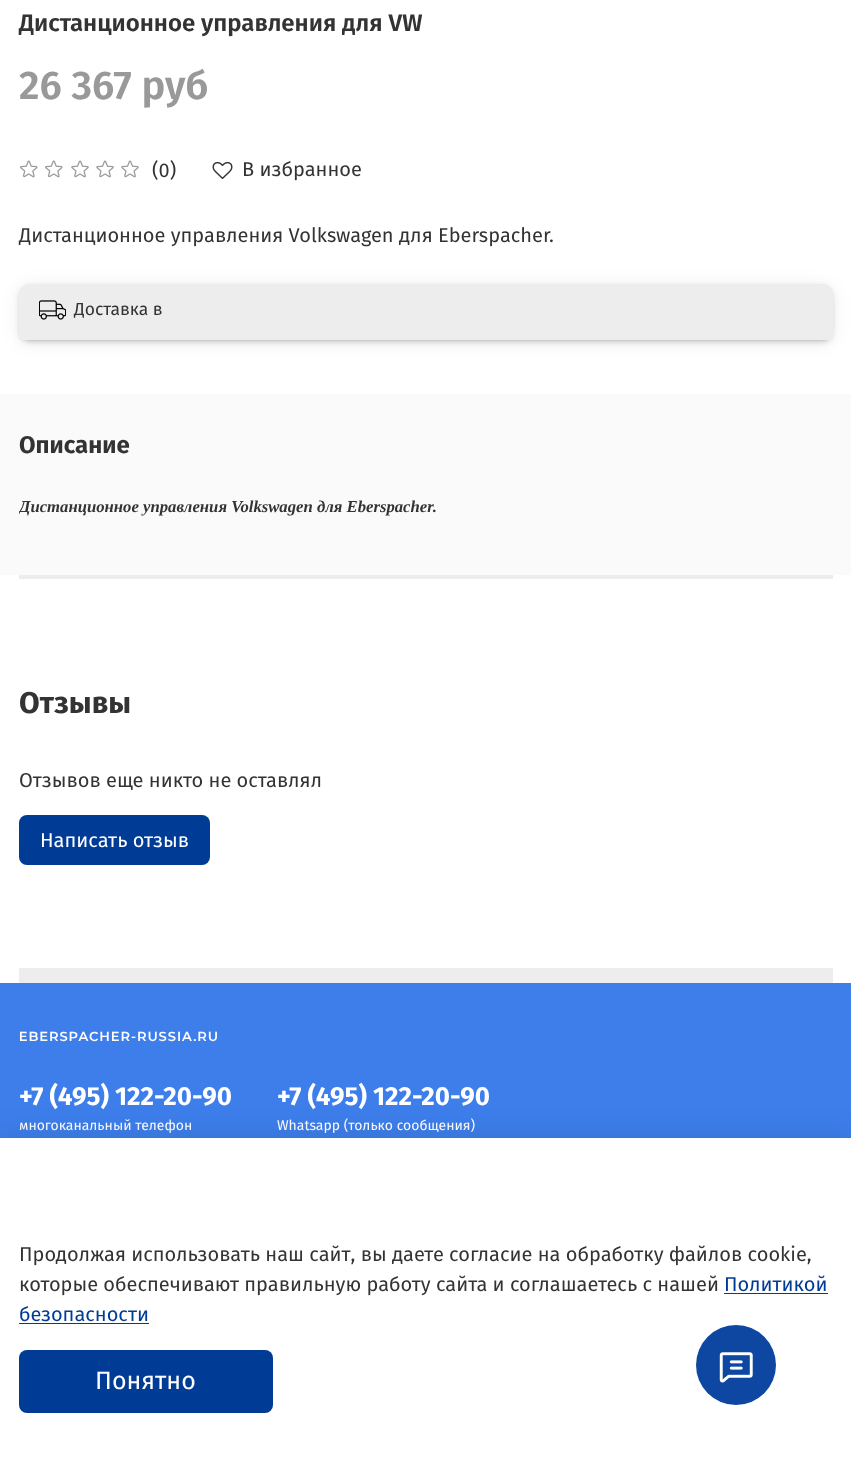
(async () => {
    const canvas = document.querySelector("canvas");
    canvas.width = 851;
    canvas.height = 1480;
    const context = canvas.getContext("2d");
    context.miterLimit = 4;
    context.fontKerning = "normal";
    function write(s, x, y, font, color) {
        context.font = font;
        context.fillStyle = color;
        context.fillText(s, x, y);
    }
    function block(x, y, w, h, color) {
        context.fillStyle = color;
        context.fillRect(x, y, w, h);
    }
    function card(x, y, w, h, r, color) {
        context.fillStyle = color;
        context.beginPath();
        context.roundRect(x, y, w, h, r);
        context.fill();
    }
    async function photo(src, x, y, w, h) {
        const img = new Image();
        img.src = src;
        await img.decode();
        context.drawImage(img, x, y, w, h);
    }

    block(0, 0, 851, 1480, "rgb(255, 255, 255)");
    write("Дистанционное управления для VW", 19, 31, "600 24px Fira Sans", "rgb(51, 51, 51)");
    write("26 367 руб", 19, 99, "600 40px Fira Sans", "rgb(153, 153, 153)");
    await photo("media/1.png", 20, 160, 18, 18);
    await photo("media/1.png", 45, 160, 18, 18);
    await photo("media/2.png", 71, 160, 18, 18);
    await photo("media/2.png", 96, 160, 18, 18);
    await photo("media/2.png", 121, 160, 18, 18);
    write("(0)", 152, 177, "20px Fira Sans", "rgb(51, 51, 51)");
    await photo("media/3.png", 212, 161, 21, 18);
    write("В избранное", 242, 176, "20px Fira Sans", "rgb(51, 51, 51)");
    write("Дистанционное управления Volkswagen для Eberspacher.", 19, 242, "20px Fira Sans", "rgb(51, 51, 51)");
    context.fillStyle = "rgba(0, 0, 0, 0.05)";
    context.filter = "blur(10px)";
    context.beginPath();
    context.roundRect(19, 286, 814, 57, 10);
    context.fill();
    context.filter = "none";
    context.filter = "blur(5px)";
    context.beginPath();
    context.roundRect(19, 286, 814, 57, 10);
    context.fill();
    context.filter = "none";
    context.filter = "blur(2.5px)";
    context.beginPath();
    context.roundRect(19, 286, 814, 57, 10);
    context.fill();
    context.filter = "none";
    context.filter = "blur(1px)";
    context.beginPath();
    context.roundRect(19, 286, 814, 57, 10);
    context.fill();
    context.filter = "none";
    context.filter = "blur(0.5px)";
    context.beginPath();
    context.roundRect(19, 285, 814, 56, 10);
    context.fill();
    context.filter = "none";
    context.fillStyle = "rgb(237, 237, 237)";
    context.beginPath();
    context.roundRect(19, 284, 814, 56, [10, 10, 0, 0]);
    context.fill();
    await photo("media/4.png", 39, 300, 27, 20);
    write("Доставка в", 74, 315, "17.5px Fira Sans", "rgb(51, 51, 51)");
    block(0, 394, 851, 181, "rgb(250, 250, 250)");
    write("Описание", 19, 453, "bold 24px Fira Sans", "rgb(51, 51, 51)");
    context.save();
    context.beginPath();
    context.rect(19, 429, 814, 111);
    context.clip();
    write("Дистанционное управления Volkswagen для Eberspacher.", 19, 512, "italic bold 16.7px Liberation Serif", "rgb(51, 51, 51)");
    context.restore();
    block(19, 575, 814, 4, "rgb(237, 237, 237)");
    write("Отзывы", 19, 713, "bold 30px Fira Sans", "rgb(51, 51, 51)");
    write("Отзывов еще никто не оставлял", 19, 787, "20px Fira Sans", "rgb(51, 51, 51)");
    card(19, 815, 191, 50, 8, "rgb(0, 60, 150)");
    write("Написать отзыв", 40, 847, "20px Fira Sans", "rgb(255, 255, 255)");
    block(19, 968, 814, 15, "rgb(237, 237, 237)");
    block(0, 983, 851, 155, "rgb(61, 126, 235)");
    await photo("media/5.png", 19, 1031, 198, 11);
    write("+7 (495) 122-20-90", 19, 1105, "bold 26px Fira Sans", "rgb(255, 255, 255)");
    write("многоканальный телефон", 19, 1130, "14px Fira Sans", "rgb(255, 255, 255)");
    write("+7 (495) 122-20-90", 277, 1105, "bold 26px Fira Sans", "rgb(255, 255, 255)");
    write("Whatsapp (только сообщения)", 277, 1130, "14px Fira Sans", "rgb(255, 255, 255)");
    context.fillStyle = "rgba(0, 0, 0, 0.09)";
    context.filter = "blur(14.5px)";
    context.beginPath();
    context.rect(-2, 1134, 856, 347);
    context.fill();
    context.filter = "none";
    block(0, 1138, 851, 342, "rgb(255, 255, 255)");
    write("Продолжая использовать наш сайт, вы даете согласие на обработку файлов cookie,", 19, 1261, "20px Fira Sans", "rgb(51, 51, 51)");
    write("которые обеспечивают правильную работу сайта и соглашаетесь с нашей", 19, 1291, "20px Fira Sans", "rgb(51, 51, 51)");
    write("Политикой", 724, 1291, "20px Fira Sans", "rgb(0, 60, 150)");
    block(724, 1293, 104, 1, "rgb(0, 60, 150)");
    write("безопасности", 19, 1321, "20px Fira Sans", "rgb(0, 60, 150)");
    block(19, 1323, 130, 1, "rgb(0, 60, 150)");
    card(19, 1350, 254, 63, 8, "rgb(0, 60, 150)");
    write("Понятно", 95, 1389, "25px Fira Sans", "rgb(255, 255, 255)");
    context.fillStyle = "rgb(13, 71, 161)";
    context.beginPath();
    context.arc(736, 1365, 40, 0, Math.PI * 2);
    context.fill();
    await photo("media/6.png", 719, 1352, 34, 31);
})();
